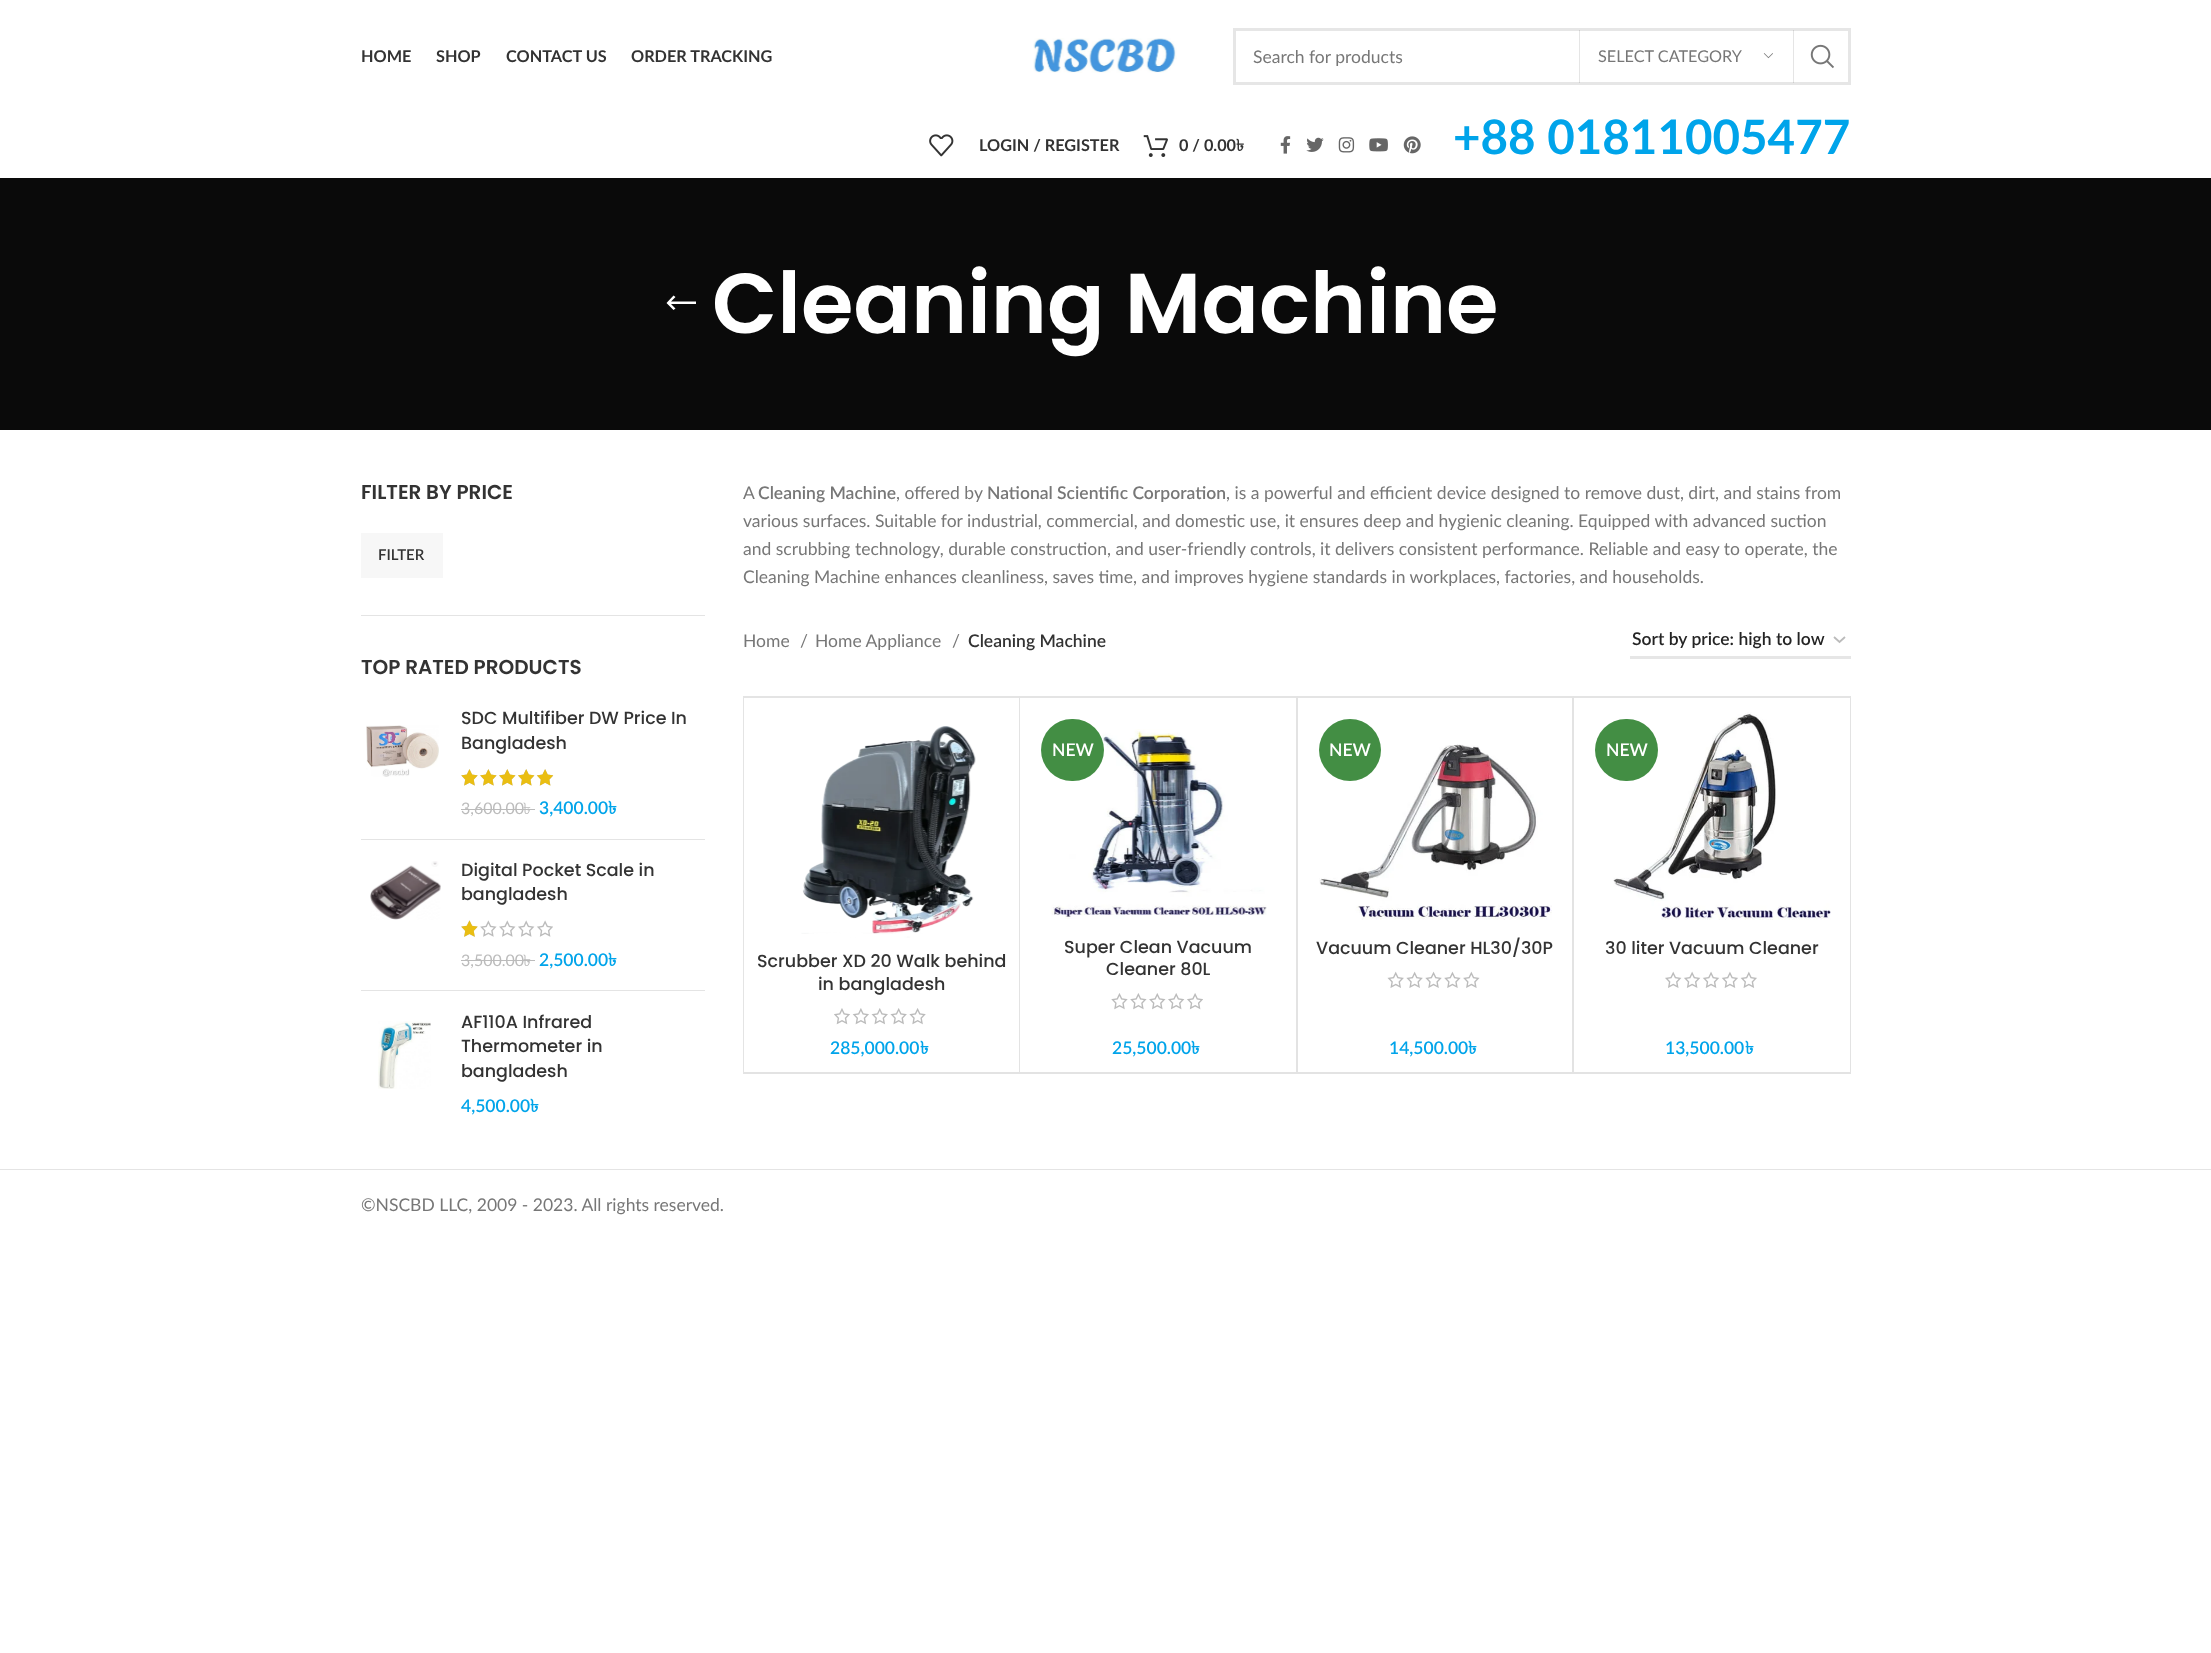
(async () => {
    const canvas = document.querySelector("canvas");
    canvas.width = 2211;
    canvas.height = 1653;
    const context = canvas.getContext("2d");
    context.miterLimit = 4;
    context.fontKerning = "normal";
    function write(s, x, y, font, color) {
        context.font = font;
        context.fillStyle = color;
        context.fillText(s, x, y);
    }
    function block(x, y, w, h, color) {
        context.fillStyle = color;
        context.fillRect(x, y, w, h);
    }
    function card(x, y, w, h, r, color) {
        context.fillStyle = color;
        context.beginPath();
        context.roundRect(x, y, w, h, r);
        context.fill();
    }
    async function photo(src, x, y, w, h) {
        const img = new Image();
        img.src = src;
        await img.decode();
        context.drawImage(img, x, y, w, h);
    }

    block(0, 0, 2211, 1653, "rgb(255, 255, 255)");
    write("HOME", 361, 62, "bold 16.25px Lato", "rgb(51, 51, 51)");
    write("SHOP", 436, 62, "bold 16.25px Lato", "rgb(51, 51, 51)");
    write("CONTACT US", 506, 62, "bold 16.25px Lato", "rgb(51, 51, 51)");
    write("ORDER TRACKING", 631, 62, "bold 16.25px Lato", "rgb(51, 51, 51)");
    await photo("media/1.png", 1033, 38, 144, 35);
    context.strokeStyle = "rgb(230, 230, 230)";
    context.lineWidth = 3;
    context.strokeRect(1234.5, 29.5, 615, 54);
    write("Search for products", 1253, 63, "17.5px Lato", "rgb(119, 119, 119)");
    block(1793, 30, 1, 53, "rgba(0, 0, 0, 0.1)");
    block(1579, 30, 1, 53, "rgba(0, 0, 0, 0.1)");
    write("SELECT CATEGORY", 1598, 62, "16.25px Lato", "rgb(119, 119, 119)");
    await photo("media/2.png", 1763, 53, 10, 6);
    await photo("media/3.png", 1810, 44, 24, 25);
    await photo("media/4.png", 929, 134, 25, 23);
    write("LOGIN / REGISTER", 979, 151, "bold 16.25px Lato", "rgb(51, 51, 51)");
    await photo("media/5.png", 1143, 135, 25, 22);
    write("0 / 0.00", 1179, 151, "bold 16.25px Lato", "rgb(51, 51, 51)");
    write("৳", 1236, 151, "bold 16.25px Lohit Bengali", "rgb(51, 51, 51)");
    await photo("media/6.png", 1280, 136, 11, 18);
    await photo("media/7.png", 1306, 137, 18, 15);
    await photo("media/8.png", 1338, 137, 17, 16);
    await photo("media/9.png", 1369, 138, 19, 14);
    await photo("media/10.png", 1403, 136, 18, 18);
    write("+88 01811005477", 1453, 154, "bold 47.5px Lato", "rgb(0, 164, 234)");
    block(0, 178, 2211, 252, "rgb(10, 10, 10)");
    context.fillStyle = "rgb(255, 255, 255)";
    context.beginPath();
    context.moveTo(675.5, 308.5);
    context.lineTo(671, 304);
    context.lineTo(696, 304);
    context.lineTo(696, 301.5);
    context.lineTo(671, 301.5);
    context.lineTo(675.5, 297);
    context.lineTo(673.5, 295.5);
    context.lineTo(666.5, 303);
    context.lineTo(673.5, 310);
    context.closePath();
    context.fill();
    write("Cleaning Machine", 712, 333, "600 85px Poppins", "rgb(255, 255, 255)");
    block(361, 615, 344, 1, "rgb(228, 228, 228)");
    write("FILTER BY PRICE", 361, 499, "600 20px Poppins", "rgb(51, 51, 51)");
    block(361, 533, 82, 45, "rgb(247, 247, 247)");
    write("FILTER", 378, 560, "600 15px Lato", "rgb(51, 51, 51)");
    write("TOP RATED PRODUCTS", 361, 674, "600 20px Poppins", "rgb(51, 51, 51)");
    block(361, 839, 344, 1, "rgb(228, 228, 228)");
    await photo("media/11.png", 366, 725, 73, 52);
    write("SDC Multifiber DW Price In", 461, 724, "500 17.5px Poppins", "rgb(51, 51, 51)");
    write("Bangladesh", 461, 749, "500 17.5px Poppins", "rgb(51, 51, 51)");
    await photo("media/12.png", 461, 769, 92, 17);
    await photo("media/13.png", 461, 769, 93, 17);
    write("3,600.00", 461, 814, "16px Lato", "rgb(187, 187, 187)");
    block(461, 809, 62, 1, "rgb(187, 187, 187)");
    block(523, 809, 12, 1, "rgb(187, 187, 187)");
    write("৳", 523, 814, "16px Lohit Bengali", "rgb(187, 187, 187)");
    write("3,400.00", 539, 814, "600 17.5px Lato", "rgb(0, 164, 234)");
    write("৳", 608, 814, "bold 17.5px Lohit Bengali", "rgb(0, 164, 234)");
    block(361, 990, 344, 1, "rgb(228, 228, 228)");
    await photo("media/14.png", 370, 861, 71, 59);
    write("Digital Pocket Scale in", 461, 876, "500 17.5px Poppins", "rgb(51, 51, 51)");
    write("bangladesh", 461, 900, "500 17.5px Poppins", "rgb(51, 51, 51)");
    await photo("media/15.png", 461, 920, 92, 17);
    await photo("media/16.png", 461, 920, 17, 17);
    write("3,500.00", 461, 966, "16px Lato", "rgb(187, 187, 187)");
    write("৳", 523, 966, "16px Lohit Bengali", "rgb(187, 187, 187)");
    block(461, 960, 62, 1, "rgb(187, 187, 187)");
    block(523, 960, 12, 1, "rgb(187, 187, 187)");
    write("2,500.00", 539, 966, "600 17.5px Lato", "rgb(0, 164, 234)");
    write("৳", 608, 966, "bold 17.5px Lohit Bengali", "rgb(0, 164, 234)");
    await photo("media/17.png", 378, 1021, 53, 68);
    write("AF110A Infrared", 461, 1028, "500 17.5px Poppins", "rgb(51, 51, 51)");
    write("Thermometer in", 461, 1052, "500 17.5px Poppins", "rgb(51, 51, 51)");
    write("bangladesh", 461, 1077, "500 17.5px Poppins", "rgb(51, 51, 51)");
    write("4,500.00", 461, 1112, "600 17.5px Lato", "rgb(0, 164, 234)");
    write("৳", 530, 1112, "bold 17.5px Lohit Bengali", "rgb(0, 164, 234)");
    write("A", 743, 499, "17.5px Lato", "rgb(119, 119, 119)");
    write("Cleaning Machine", 758, 499, "600 17.5px Lato", "rgb(119, 119, 119)");
    write(", offered by", 896, 499, "17.5px Lato", "rgb(119, 119, 119)");
    write("National Scientific Corporation", 987, 499, "600 17.5px Lato", "rgb(119, 119, 119)");
    write(", is a powerful and efficient device designed to remove dust, dirt, and stains from", 1226, 499, "17.5px Lato", "rgb(119, 119, 119)");
    write("various surfaces. Suitable for industrial, commercial, and domestic use, it ensures deep and hygienic cleaning. Equipped with advanced suction", 743, 527, "17.5px Lato", "rgb(119, 119, 119)");
    write("and scrubbing technology, durable construction, and user-friendly controls, it delivers consistent performance. Reliable and easy to operate, the", 743, 555, "17.5px Lato", "rgb(119, 119, 119)");
    write("Cleaning Machine enhances cleanliness, saves time, and improves hygiene standards in workplaces, factories, and households.", 743, 583, "17.5px Lato", "rgb(119, 119, 119)");
    write("Home", 743, 647, "17.5px Lato", "rgb(119, 119, 119)");
    write("/", 800, 647, "17.5px Lato", "rgb(119, 119, 119)");
    write("Home Appliance", 815, 647, "17.5px Lato", "rgb(119, 119, 119)");
    write("/", 952, 647, "17.5px Lato", "rgb(119, 119, 119)");
    write("Cleaning Machine", 968, 647, "600 17.5px Lato", "rgb(51, 51, 51)");
    context.beginPath();
    context.moveTo(1834, 637);
    context.lineTo(1839.5, 642);
    context.lineTo(1845, 637);
    context.strokeStyle = "rgb(187, 187, 187)";
    context.lineWidth = 1.8;
    context.stroke();
    block(1630, 656, 221, 3, "rgb(230, 230, 230)");
    write("Sort by price: high to low", 1632, 645, "600 17.5px Lato", "rgb(36, 36, 36)");
    block(743, 696, 1, 378, "rgb(228, 228, 228)");
    context.beginPath();
    context.moveTo(744, 696);
    context.lineTo(1020, 696);
    context.lineTo(1019, 698);
    context.lineTo(744, 698);
    context.closePath();
    context.fill();
    context.fillStyle = "rgba(0, 0, 0, 0.11)";
    context.beginPath();
    context.moveTo(1020, 696);
    context.lineTo(1020, 1074);
    context.lineTo(1019, 1072);
    context.lineTo(1019, 698);
    context.closePath();
    context.fill();
    context.beginPath();
    context.moveTo(1020, 1074);
    context.lineTo(744, 1074);
    context.lineTo(744, 1072);
    context.lineTo(1019, 1072);
    context.closePath();
    context.fill();
    await photo("media/18.png", 801, 726, 175, 212);
    write("Scrubber XD 20 Walk behind", 757, 967, "500 17.5px Poppins", "rgb(51, 51, 51)");
    write("in bangladesh", 818, 990, "500 17.5px Poppins", "rgb(51, 51, 51)");
    await photo("media/19.png", 834, 1008, 92, 17);
    write("285,000.00", 830, 1054, "600 17.5px Lato", "rgb(0, 164, 234)");
    write("৳", 920, 1054, "bold 17.5px Lohit Bengali", "rgb(0, 164, 234)");
    context.fillStyle = "rgb(228, 228, 228)";
    context.beginPath();
    context.moveTo(1020, 696);
    context.lineTo(1298, 696);
    context.lineTo(1296, 698);
    context.lineTo(1020, 698);
    context.closePath();
    context.fill();
    context.fillStyle = "rgba(0, 0, 0, 0.11)";
    context.beginPath();
    context.moveTo(1298, 696);
    context.lineTo(1298, 1074);
    context.lineTo(1296, 1072);
    context.lineTo(1296, 698);
    context.closePath();
    context.fill();
    context.beginPath();
    context.moveTo(1298, 1074);
    context.lineTo(1020, 1074);
    context.lineTo(1020, 1072);
    context.lineTo(1296, 1072);
    context.closePath();
    context.fill();
    await photo("media/20.png", 1051, 729, 216, 190);
    card(1041, 719, 63, 62, 31, "rgb(67, 142, 68)");
    write("NEW", 1052, 756, "600 17.5px Lato", "rgb(255, 255, 255)");
    write("Super Clean Vacuum", 1064, 953, "500 17.5px Poppins", "rgb(51, 51, 51)");
    write("Cleaner 80L", 1106, 975, "500 17.5px Poppins", "rgb(51, 51, 51)");
    await photo("media/21.png", 1111, 993, 92, 17);
    write("25,500.00", 1112, 1054, "600 17.5px Lato", "rgb(0, 164, 234)");
    write("৳", 1191, 1054, "bold 17.5px Lohit Bengali", "rgb(0, 164, 234)");
    context.fillStyle = "rgb(228, 228, 228)";
    context.beginPath();
    context.moveTo(1298, 696);
    context.lineTo(1574, 696);
    context.lineTo(1572, 698);
    context.lineTo(1298, 698);
    context.closePath();
    context.fill();
    context.fillStyle = "rgba(0, 0, 0, 0.11)";
    context.beginPath();
    context.moveTo(1574, 696);
    context.lineTo(1574, 1074);
    context.lineTo(1572, 1072);
    context.lineTo(1572, 698);
    context.closePath();
    context.fill();
    context.beginPath();
    context.moveTo(1574, 1074);
    context.lineTo(1298, 1074);
    context.lineTo(1298, 1072);
    context.lineTo(1572, 1072);
    context.closePath();
    context.fill();
    await photo("media/22.png", 1319, 744, 233, 176);
    context.fillStyle = "rgb(67, 142, 68)";
    context.beginPath();
    context.arc(1350, 750, 31, 0, Math.PI * 2);
    context.fill();
    write("NEW", 1329, 756, "600 17.5px Lato", "rgb(255, 255, 255)");
    write("Vacuum Cleaner HL30/30P", 1316, 954, "500 17.5px Poppins", "rgb(51, 51, 51)");
    await photo("media/23.png", 1387, 971, 93, 17);
    write("14,500.00", 1389, 1054, "600 17.5px Lato", "rgb(0, 164, 234)");
    write("৳", 1468, 1054, "bold 17.5px Lohit Bengali", "rgb(0, 164, 234)");
    context.fillStyle = "rgb(228, 228, 228)";
    context.beginPath();
    context.moveTo(1574, 696);
    context.lineTo(1851, 696);
    context.lineTo(1850, 698);
    context.lineTo(1574, 698);
    context.closePath();
    context.fill();
    context.fillStyle = "rgba(0, 0, 0, 0.11)";
    context.beginPath();
    context.moveTo(1851, 696);
    context.lineTo(1851, 1074);
    context.lineTo(1850, 1072);
    context.lineTo(1850, 698);
    context.closePath();
    context.fill();
    context.beginPath();
    context.moveTo(1851, 1074);
    context.lineTo(1574, 1074);
    context.lineTo(1574, 1072);
    context.lineTo(1850, 1072);
    context.closePath();
    context.fill();
    await photo("media/24.png", 1613, 712, 218, 208);
    card(1595, 719, 63, 62, 31, "rgb(67, 142, 68)");
    write("NEW", 1606, 756, "600 17.5px Lato", "rgb(255, 255, 255)");
    write("30 liter Vacuum Cleaner", 1605, 954, "500 17.5px Poppins", "rgb(51, 51, 51)");
    await photo("media/25.png", 1665, 971, 92, 17);
    write("13,500.00", 1665, 1054, "600 17.5px Lato", "rgb(0, 164, 234)");
    write("৳", 1745, 1054, "bold 17.5px Lohit Bengali", "rgb(0, 164, 234)");
    block(0, 1169, 2211, 1, "rgb(228, 228, 228)");
    write("©NSCBD LLC, 2009 - 2023. All rights reserved.", 361, 1211, "17.5px Lato", "rgb(119, 119, 119)");
})();
